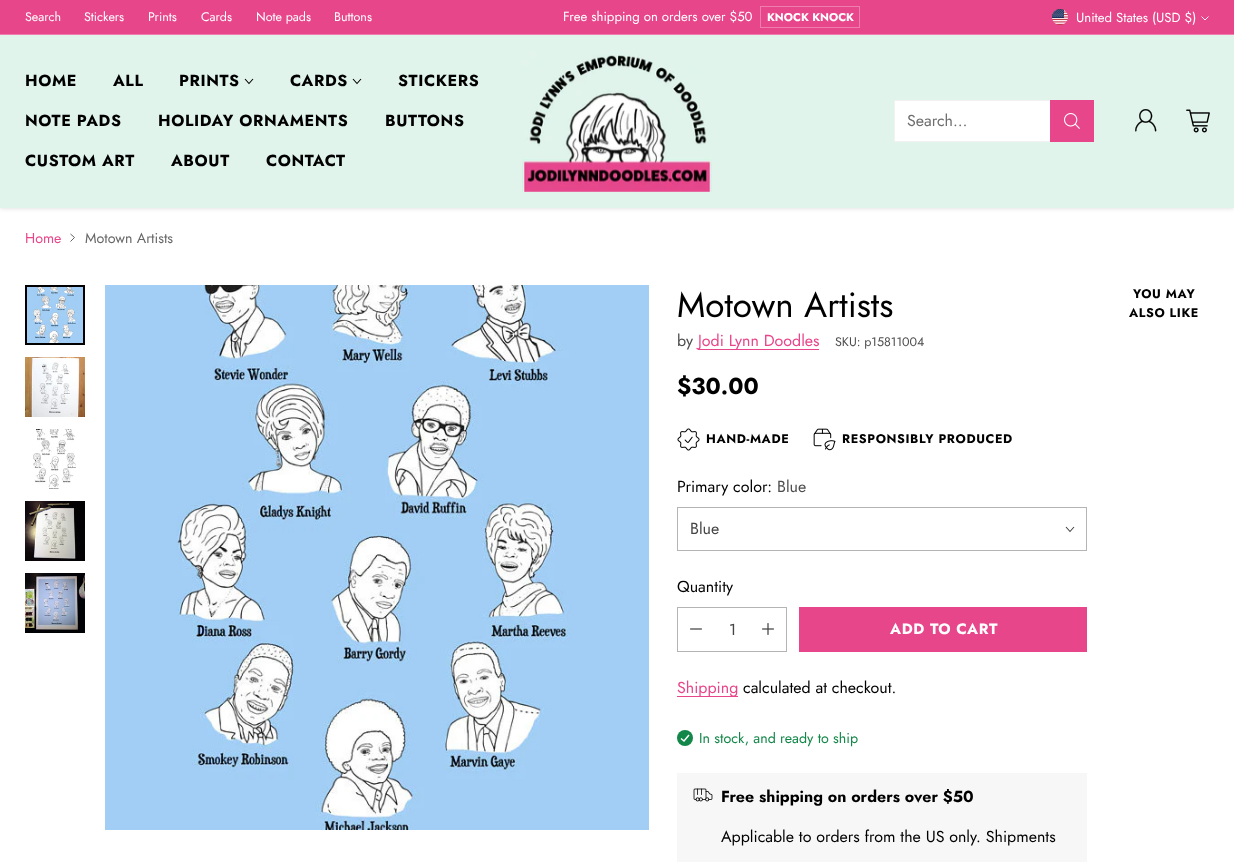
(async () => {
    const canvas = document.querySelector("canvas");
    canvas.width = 1234;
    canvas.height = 862;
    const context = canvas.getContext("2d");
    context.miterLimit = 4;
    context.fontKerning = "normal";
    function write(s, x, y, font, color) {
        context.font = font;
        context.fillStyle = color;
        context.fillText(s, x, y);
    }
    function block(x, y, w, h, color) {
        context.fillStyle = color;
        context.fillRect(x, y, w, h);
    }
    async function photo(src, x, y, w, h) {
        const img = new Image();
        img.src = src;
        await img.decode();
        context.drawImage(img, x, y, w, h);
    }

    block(0, 0, 1234, 862, "rgb(255, 255, 255)");
    context.fillStyle = "rgba(0, 0, 0, 0.15)";
    context.filter = "blur(2.5px)";
    context.beginPath();
    context.rect(0, 35, 1234, 173);
    context.fill();
    context.filter = "none";
    block(0, 0, 1234, 34, "rgb(232, 70, 139)");
    block(0, 34, 1234, 1, "rgb(239, 126, 174)");
    write("Search", 25, 21, "12.5px Jost", "rgb(255, 255, 255)");
    write("Stickers", 84, 21, "12.5px Jost", "rgb(255, 255, 255)");
    write("Prints", 148, 21, "12.5px Jost", "rgb(255, 255, 255)");
    write("Cards", 201, 21, "12.5px Jost", "rgb(255, 255, 255)");
    write("Note pads", 256, 21, "12.5px Jost", "rgb(255, 255, 255)");
    write("Buttons", 334, 21, "12.5px Jost", "rgb(255, 255, 255)");
    write("Free shipping on orders over $50", 563, 21, "13.2px Jost", "rgb(255, 255, 255)");
    context.strokeStyle = "rgb(239, 126, 174)";
    context.strokeRect(760.5, 6.5, 99, 21);
    write("KNOCK KNOCK", 767, 21, "bold 11.25px Jost", "rgb(255, 255, 255)");
    await photo("media/1.png", 1052, 9, 16, 16);
    write("United States (USD $)", 1076, 22, "13.2px Jost", "rgb(255, 255, 255)");
    context.beginPath();
    context.moveTo(1201.5, 16.5);
    context.lineTo(1205, 20);
    context.lineTo(1208.5, 16.5);
    context.strokeStyle = "rgb(255, 255, 255)";
    context.lineWidth = 0.9;
    context.stroke();
    block(0, 35, 1234, 173, "rgb(224, 244, 236)");
    context.letterSpacing = "0.6px";
    write("HOME", 25, 86, "bold 16px Jost", "rgb(0, 0, 0)");
    write("ALL", 113, 86, "bold 16px Jost", "rgb(0, 0, 0)");
    write("PRINTS", 179, 86, "bold 16px Jost", "rgb(0, 0, 0)");
    context.beginPath();
    context.moveTo(245, 79);
    context.lineTo(249, 83.5);
    context.lineTo(253, 79);
    context.strokeStyle = "rgb(0, 0, 0)";
    context.lineWidth = 1.1;
    context.stroke();
    write("CARDS", 290, 86, "bold 16px Jost", "rgb(0, 0, 0)");
    context.beginPath();
    context.moveTo(353, 79);
    context.lineTo(357, 83.5);
    context.lineTo(361, 79);
    context.stroke();
    write("STICKERS", 398, 86, "bold 16px Jost", "rgb(0, 0, 0)");
    write("NOTE PADS", 25, 126, "bold 16px Jost", "rgb(0, 0, 0)");
    write("HOLIDAY ORNAMENTS", 158, 126, "bold 16px Jost", "rgb(0, 0, 0)");
    write("BUTTONS", 385, 126, "bold 16px Jost", "rgb(0, 0, 0)");
    write("CUSTOM ART", 25, 166, "bold 16px Jost", "rgb(0, 0, 0)");
    write("ABOUT", 171, 166, "bold 16px Jost", "rgb(0, 0, 0)");
    write("CONTACT", 266, 166, "bold 16px Jost", "rgb(0, 0, 0)");
    await photo("media/2.png", 522, 51, 190, 141);
    block(895, 101, 155, 40, "rgb(255, 255, 255)");
    context.strokeStyle = "rgb(242, 242, 242)";
    context.lineWidth = 1;
    context.strokeRect(894.5, 100.5, 199, 41);
    context.letterSpacing = "0px";
    write("Search…", 907, 126, "16px Jost", "rgb(110, 110, 110)");
    block(1050, 100, 44, 42, "rgb(232, 70, 139)");
    await photo("media/3.png", 1064, 113, 16, 16);
    await photo("media/4.png", 1135, 109, 22, 23);
    await photo("media/5.png", 1186, 109, 24, 24);
    write("Home", 25, 243, "14.25px Jost", "rgb(232, 70, 139)");
    context.beginPath();
    context.moveTo(70.5, 241.5);
    context.lineTo(74.5, 237.5);
    context.lineTo(70.5, 234);
    context.strokeStyle = "rgb(102, 102, 102)";
    context.stroke();
    write("Motown Artists", 85, 243, "14.25px Jost", "rgb(102, 102, 102)");
    await photo("media/6.png", 27, 287, 56, 56);
    context.strokeStyle = "rgb(0, 0, 0)";
    context.lineWidth = 2;
    context.strokeRect(26, 286, 58, 58);
    await photo("media/7.png", 25, 357, 60, 60);
    await photo("media/8.png", 33, 429, 43, 60);
    await photo("media/9.png", 25, 501, 60, 60);
    await photo("media/10.png", 25, 573, 60, 60);
    await photo("media/11.png", 105, 285, 544, 545);
    write("Motown Artists", 677, 317, "35px Jost", "rgb(0, 0, 0)");
    write("by", 677, 346, "16px Jost", "rgb(77, 77, 77)");
    block(698, 349, 121, 1, "rgb(232, 70, 139)");
    write("Jodi Lynn Doodles", 698, 346, "16px Jost", "rgb(232, 70, 139)");
    write("SKU: p15811004", 835, 346, "12.5px Jost", "rgb(77, 77, 77)");
    write("$30.00", 677, 394, "bold 23px Jost", "rgb(0, 0, 0)");
    await photo("media/12.png", 677, 428, 23, 23);
    context.letterSpacing = "0.6px";
    write("HAND-MADE", 706, 443, "bold 12.5px Jost", "rgb(0, 0, 0)");
    await photo("media/13.png", 813, 428, 23, 23);
    write("RESPONSIBLY PRODUCED", 842, 443, "bold 12.5px Jost", "rgb(0, 0, 0)");
    context.letterSpacing = "0px";
    write("Primary color:", 677, 492, "16px Jost", "rgb(0, 0, 0)");
    write("Blue", 777, 492, "16px Jost", "rgb(77, 77, 77)");
    context.strokeStyle = "rgb(180, 180, 180)";
    context.lineWidth = 1;
    context.strokeRect(677.5, 507.5, 409, 43);
    write("Blue", 690, 534, "16px Jost", "rgb(68, 68, 68)");
    context.beginPath();
    context.moveTo(1066, 527);
    context.lineTo(1070, 531.5);
    context.lineTo(1074, 527);
    context.strokeStyle = "rgb(68, 68, 68)";
    context.lineWidth = 1.1;
    context.stroke();
    write("Quantity", 677, 592, "16px Jost", "rgb(0, 0, 0)");
    context.strokeStyle = "rgb(180, 180, 180)";
    context.lineWidth = 1;
    context.strokeRect(677.5, 607.5, 109, 44);
    await photo("media/14.png", 690, 628, 12, 2);
    write("1", 729, 635, "16px Jost", "rgb(68, 68, 68)");
    await photo("media/15.png", 762, 623, 12, 12);
    block(799, 607, 288, 45, "rgb(232, 70, 139)");
    context.letterSpacing = "0.6px";
    write("ADD TO CART", 890, 634, "bold 15px Jost", "rgb(255, 255, 255)");
    block(677, 696, 61, 1, "rgb(232, 70, 139)");
    context.letterSpacing = "0px";
    write("Shipping", 677, 693, "16px Jost", "rgb(232, 70, 139)");
    write("calculated at checkout.", 743, 693, "16px Jost", "rgb(0, 0, 0)");
    context.fillStyle = "rgb(19, 135, 73)";
    context.beginPath();
    context.arc(685, 738, 8, 0, Math.PI * 2);
    context.fill();
    context.beginPath();
    context.moveTo(681, 738.5);
    context.lineTo(684, 741);
    context.lineTo(689, 735);
    context.strokeStyle = "rgb(255, 255, 255)";
    context.lineWidth = 1.5;
    context.stroke();
    write("In stock, and ready to ship", 699, 743, "14.25px Jost", "rgb(19, 135, 73)");
    block(677, 773, 410, 89, "rgb(247, 247, 247)");
    await photo("media/16.png", 693, 788, 20, 14);
    write("Free shipping on orders over $50", 721, 802, "bold 16px Jost", "rgb(0, 0, 0)");
    write("Applicable to orders from the US only. Shipments", 721, 842, "16px Jost", "rgb(0, 0, 0)");
    context.letterSpacing = "0.6px";
    write("YOU MAY", 1133, 298, "bold 12.5px Jost", "rgb(0, 0, 0)");
    write("ALSO LIKE", 1129, 317, "bold 12.5px Jost", "rgb(0, 0, 0)");
})();
